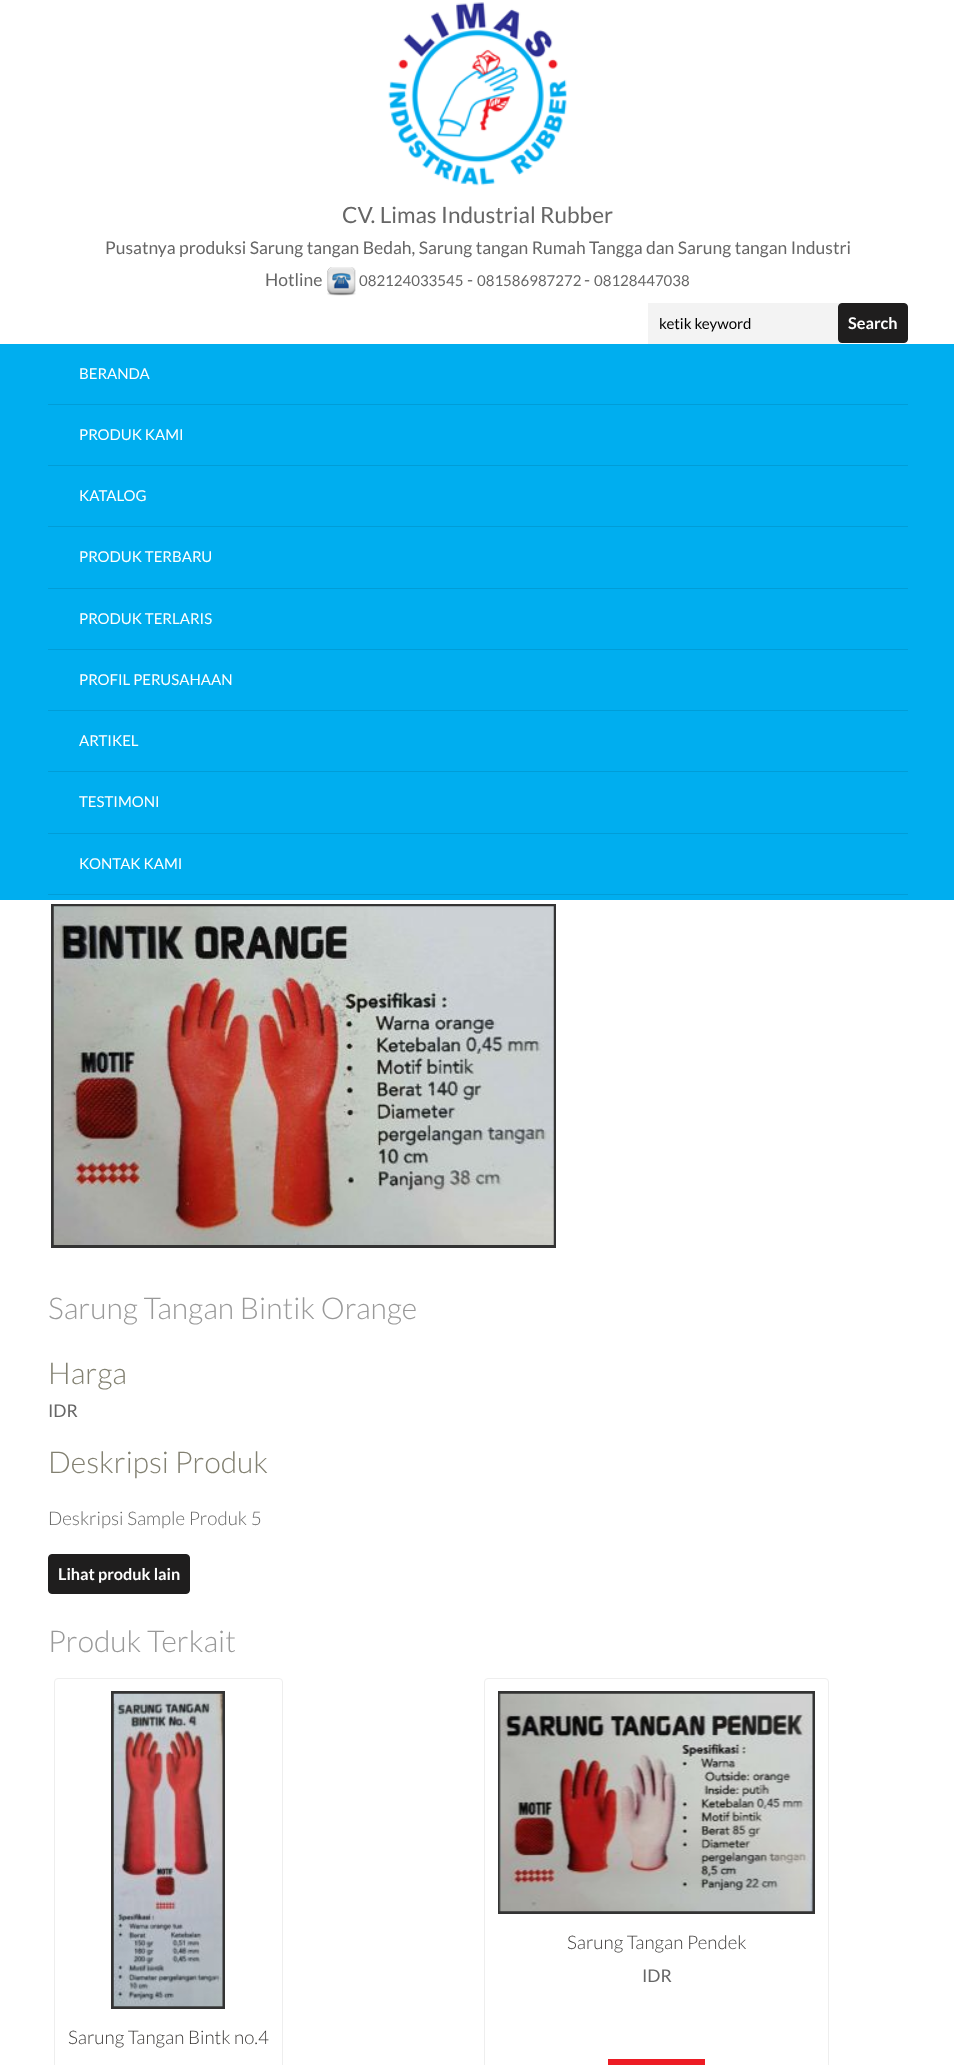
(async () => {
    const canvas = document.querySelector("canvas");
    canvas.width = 954;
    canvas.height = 2065;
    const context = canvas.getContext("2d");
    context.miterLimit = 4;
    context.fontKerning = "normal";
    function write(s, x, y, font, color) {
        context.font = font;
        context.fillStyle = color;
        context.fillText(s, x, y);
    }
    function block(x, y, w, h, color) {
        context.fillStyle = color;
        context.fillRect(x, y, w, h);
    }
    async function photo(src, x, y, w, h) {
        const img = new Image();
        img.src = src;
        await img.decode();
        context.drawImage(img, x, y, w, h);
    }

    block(0, 0, 954, 2065, "rgb(255, 255, 255)");
    await photo("media/1.png", 388, 2, 179, 184);
    write("CV. Limas Industrial Rubber", 342, 223, "22.5px Lato", "rgb(102, 102, 102)");
    write("Pusatnya produksi Sarung tangan Bedah, Sarung tangan Rumah Tangga dan Sarung tangan Industri", 105, 254, "17.5px Lato", "rgb(102, 102, 102)");
    write("Hotline", 265, 286, "17.5px Lato", "rgb(102, 102, 102)");
    await photo("media/2.png", 327, 267, 29, 29);
    write("082124033545", 359, 286, "15px Lato", "rgb(102, 102, 102)");
    write("-", 467, 286, "17.5px Lato", "rgb(102, 102, 102)");
    write("081586987272", 477, 286, "15px Lato", "rgb(102, 102, 102)");
    write("-", 584, 286, "17.5px Lato", "rgb(102, 102, 102)");
    write("08128447038", 594, 286, "15px Lato", "rgb(102, 102, 102)");
    block(648, 303, 193, 41, "rgb(243, 243, 243)");
    write("ketik keyword", 659, 329, "15px Lato", "rgb(0, 0, 0)");
    context.fillStyle = "rgb(31, 30, 30)";
    context.beginPath();
    context.roundRect(838.5, 303.5, 69, 39, 3.5);
    context.fill();
    context.strokeStyle = "rgb(31, 30, 30)";
    context.stroke();
    write("Search", 848, 329, "bold 16.25px Lato", "rgb(255, 255, 255)");
    block(0, 344, 954, 556, "rgb(0, 174, 239)");
    block(48, 404, 860, 1, "rgb(0, 157, 215)");
    write("BERANDA", 79, 379, "15px Lato", "rgb(255, 255, 255)");
    block(48, 465, 860, 1, "rgb(0, 157, 215)");
    write("PRODUK KAMI", 79, 440, "15px Lato", "rgb(255, 255, 255)");
    block(48, 526, 860, 1, "rgb(0, 157, 215)");
    write("KATALOG", 79, 501, "15px Lato", "rgb(255, 255, 255)");
    block(48, 588, 860, 1, "rgb(0, 157, 215)");
    write("PRODUK TERBARU", 79, 562, "15px Lato", "rgb(255, 255, 255)");
    block(48, 649, 860, 1, "rgb(0, 157, 215)");
    write("PRODUK TERLARIS", 79, 624, "15px Lato", "rgb(255, 255, 255)");
    block(48, 710, 860, 1, "rgb(0, 157, 215)");
    write("PROFIL PERUSAHAAN", 79, 685, "15px Lato", "rgb(255, 255, 255)");
    block(48, 771, 860, 1, "rgb(0, 157, 215)");
    write("ARTIKEL", 79, 746, "15px Lato", "rgb(255, 255, 255)");
    block(48, 833, 860, 1, "rgb(0, 157, 215)");
    write("TESTIMONI", 79, 807, "15px Lato", "rgb(255, 255, 255)");
    block(48, 894, 860, 1, "rgb(0, 157, 215)");
    write("KONTAK KAMI", 79, 869, "15px Lato", "rgb(255, 255, 255)");
    context.strokeStyle = "rgb(51, 51, 51)";
    context.lineWidth = 3;
    context.strokeRect(52.5, 905.5, 502, 341);
    await photo("media/3.png", 53, 906, 501, 339);
    write("Sarung Tangan Bintik Orange", 48, 1319, "300 30px Lato", "rgb(153, 153, 153)");
    write("Harga", 48, 1384, "300 30px Lato", "rgb(130, 128, 113)");
    write("IDR", 48, 1417, "17.5px Lato", "rgb(102, 102, 102)");
    write("Deskripsi Produk", 48, 1473, "300 30px Lato", "rgb(130, 128, 113)");
    write("Deskripsi Sample Produk 5", 48, 1525, "300 18.75px Lato", "rgb(102, 102, 102)");
    context.fillStyle = "rgb(31, 30, 30)";
    context.beginPath();
    context.roundRect(48.5, 1554.5, 141, 39, 3.5);
    context.fill();
    context.strokeStyle = "rgb(31, 30, 30)";
    context.lineWidth = 1;
    context.stroke();
    write("Lihat produk lain", 58, 1580, "bold 16.25px Lato", "rgb(255, 255, 255)");
    write("Produk Terkait", 48, 1652, "300 30px Lato", "rgb(153, 153, 153)");
    context.beginPath();
    context.roundRect(484.5, 1678.5, 344, 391, 3.5);
    context.strokeStyle = "rgb(238, 238, 238)";
    context.stroke();
    context.strokeStyle = "rgb(51, 51, 51)";
    context.lineWidth = 3;
    context.strokeRect(499.5, 1692.5, 314, 220);
    await photo("media/4.png", 499, 1693, 314, 219);
    write("Sarung Tangan Pendek", 567, 1949, "300 18.75px Lato", "rgb(61, 59, 58)");
    write("IDR", 642, 1982, "17.5px Lato", "rgb(102, 102, 102)");
    block(608, 2059, 97, 6, "rgb(237, 28, 36)");
    context.beginPath();
    context.roundRect(54.5, 1678.5, 228, 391, 3.5);
    context.strokeStyle = "rgb(238, 238, 238)";
    context.lineWidth = 1;
    context.stroke();
    context.strokeStyle = "rgb(51, 51, 51)";
    context.lineWidth = 3;
    context.strokeRect(112.5, 1692.5, 111, 315);
    await photo("media/5.png", 113, 1693, 110, 314);
    write("Sarung Tangan Bintk no.4", 68, 2044, "300 18.75px Lato", "rgb(61, 59, 58)");
})();
